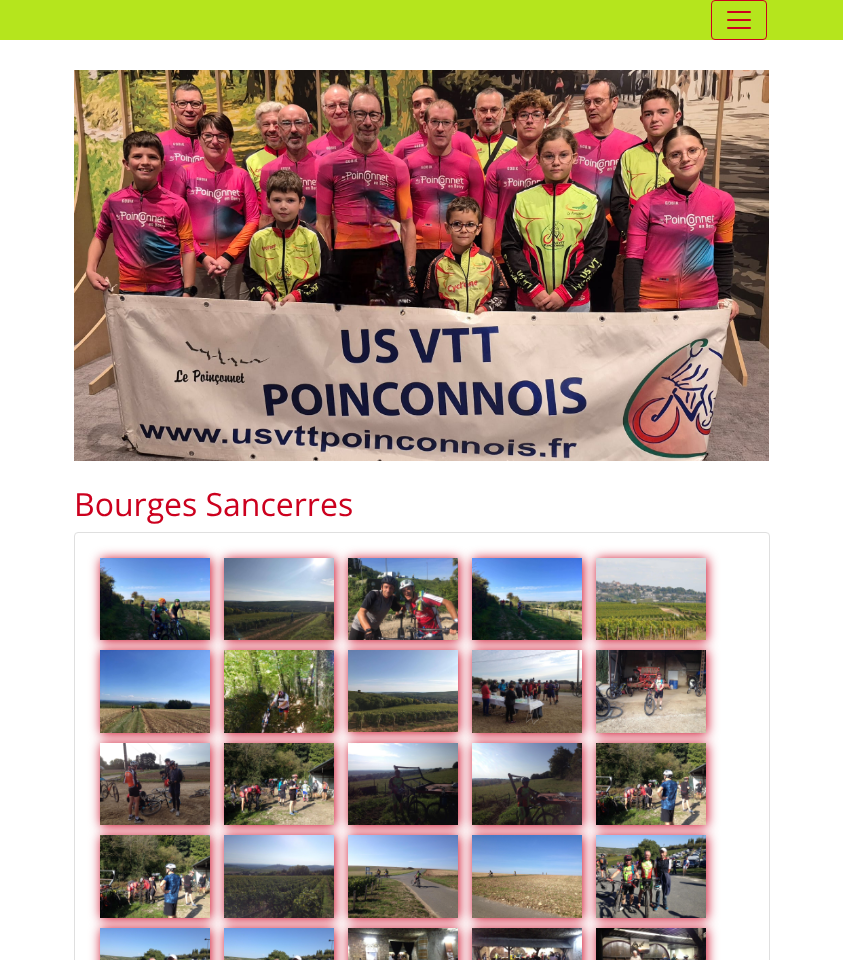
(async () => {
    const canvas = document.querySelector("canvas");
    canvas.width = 843;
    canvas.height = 960;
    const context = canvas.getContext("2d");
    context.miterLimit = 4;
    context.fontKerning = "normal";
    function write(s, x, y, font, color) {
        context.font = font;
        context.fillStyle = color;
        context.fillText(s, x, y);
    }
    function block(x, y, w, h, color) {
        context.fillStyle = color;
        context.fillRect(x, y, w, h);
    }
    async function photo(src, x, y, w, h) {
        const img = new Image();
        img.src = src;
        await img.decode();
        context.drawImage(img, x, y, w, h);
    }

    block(0, 0, 843, 960, "rgb(255, 255, 255)");
    block(0, 0, 843, 40, "rgb(181, 229, 29)");
    context.beginPath();
    context.roundRect(711.5, 0.5, 55, 39, 3.5);
    context.strokeStyle = "rgb(204, 0, 30)";
    context.stroke();
    await photo("media/1.png", 727, 11, 24, 18);
    await photo("media/2.png", 74, 70, 695, 391);
    write("Bourges Sancerres", 74, 516, "32px Open Sans", "rgb(204, 0, 30)");
    context.beginPath();
    context.roundRect(74.5, 532.5, 695, 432, 3.5);
    context.strokeStyle = "rgb(223, 223, 223)";
    context.stroke();
    context.filter = "blur(6px)";
    context.beginPath();
    context.rect(101, 559, 110, 82);
    context.fill();
    context.filter = "none";
    await photo("media/3.png", 100, 558, 110, 82);
    context.filter = "blur(6px)";
    context.beginPath();
    context.rect(225, 559, 110, 82);
    context.fill();
    context.filter = "none";
    await photo("media/4.png", 224, 558, 110, 82);
    context.filter = "blur(6px)";
    context.beginPath();
    context.rect(349, 559, 110, 82);
    context.fill();
    context.filter = "none";
    await photo("media/5.png", 348, 558, 110, 82);
    context.filter = "blur(6px)";
    context.beginPath();
    context.rect(473, 559, 110, 82);
    context.fill();
    context.filter = "none";
    await photo("media/6.png", 472, 558, 110, 82);
    context.filter = "blur(6px)";
    context.beginPath();
    context.rect(597, 559, 110, 82);
    context.fill();
    context.filter = "none";
    await photo("media/7.png", 596, 558, 110, 82);
    context.filter = "blur(6px)";
    context.beginPath();
    context.rect(101, 651, 110, 83);
    context.fill();
    context.filter = "none";
    await photo("media/8.png", 100, 650, 110, 83);
    context.filter = "blur(6px)";
    context.beginPath();
    context.rect(225, 651, 110, 83);
    context.fill();
    context.filter = "none";
    await photo("media/9.png", 224, 650, 110, 83);
    context.filter = "blur(6px)";
    context.beginPath();
    context.rect(349, 651, 110, 82);
    context.fill();
    context.filter = "none";
    await photo("media/10.png", 348, 650, 110, 82);
    context.filter = "blur(6px)";
    context.beginPath();
    context.rect(473, 651, 110, 83);
    context.fill();
    context.filter = "none";
    await photo("media/11.png", 472, 650, 110, 83);
    context.filter = "blur(6px)";
    context.beginPath();
    context.rect(597, 651, 110, 83);
    context.fill();
    context.filter = "none";
    await photo("media/12.png", 596, 650, 110, 83);
    context.filter = "blur(6px)";
    context.beginPath();
    context.rect(101, 744, 110, 82);
    context.fill();
    context.filter = "none";
    await photo("media/13.png", 100, 743, 110, 82);
    context.filter = "blur(6px)";
    context.beginPath();
    context.rect(225, 744, 110, 82);
    context.fill();
    context.filter = "none";
    await photo("media/14.png", 224, 743, 110, 82);
    context.filter = "blur(6px)";
    context.beginPath();
    context.rect(349, 744, 110, 82);
    context.fill();
    context.filter = "none";
    await photo("media/15.png", 348, 743, 110, 82);
    context.filter = "blur(6px)";
    context.beginPath();
    context.rect(473, 744, 110, 82);
    context.fill();
    context.filter = "none";
    await photo("media/16.png", 472, 743, 110, 82);
    context.filter = "blur(6px)";
    context.beginPath();
    context.rect(597, 744, 110, 82);
    context.fill();
    context.filter = "none";
    await photo("media/17.png", 596, 743, 110, 82);
    context.filter = "blur(6px)";
    context.beginPath();
    context.rect(101, 836, 110, 83);
    context.fill();
    context.filter = "none";
    await photo("media/18.png", 100, 835, 110, 83);
    context.filter = "blur(6px)";
    context.beginPath();
    context.rect(225, 836, 110, 83);
    context.fill();
    context.filter = "none";
    await photo("media/19.png", 224, 835, 110, 83);
    context.filter = "blur(6px)";
    context.beginPath();
    context.rect(349, 836, 110, 83);
    context.fill();
    context.filter = "none";
    await photo("media/20.png", 348, 835, 110, 83);
    context.filter = "blur(6px)";
    context.beginPath();
    context.rect(473, 836, 110, 83);
    context.fill();
    context.filter = "none";
    await photo("media/21.png", 472, 835, 110, 83);
    context.filter = "blur(6px)";
    context.beginPath();
    context.rect(597, 836, 110, 83);
    context.fill();
    context.filter = "none";
    await photo("media/22.png", 596, 835, 110, 83);
    context.filter = "blur(6px)";
    context.beginPath();
    context.rect(101, 929, 110, 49);
    context.fill();
    context.filter = "none";
    await photo("media/23.png", 100, 928, 110, 32);
    context.filter = "blur(6px)";
    context.beginPath();
    context.rect(225, 929, 110, 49);
    context.fill();
    context.filter = "none";
    await photo("media/24.png", 224, 928, 110, 32);
    context.filter = "blur(6px)";
    context.beginPath();
    context.rect(349, 929, 110, 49);
    context.fill();
    context.filter = "none";
    await photo("media/25.png", 348, 928, 110, 32);
    context.filter = "blur(6px)";
    context.beginPath();
    context.rect(473, 929, 110, 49);
    context.fill();
    context.filter = "none";
    await photo("media/26.png", 472, 928, 110, 32);
    context.filter = "blur(6px)";
    context.beginPath();
    context.rect(597, 929, 110, 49);
    context.fill();
    context.filter = "none";
    await photo("media/27.png", 596, 928, 110, 32);
})();
